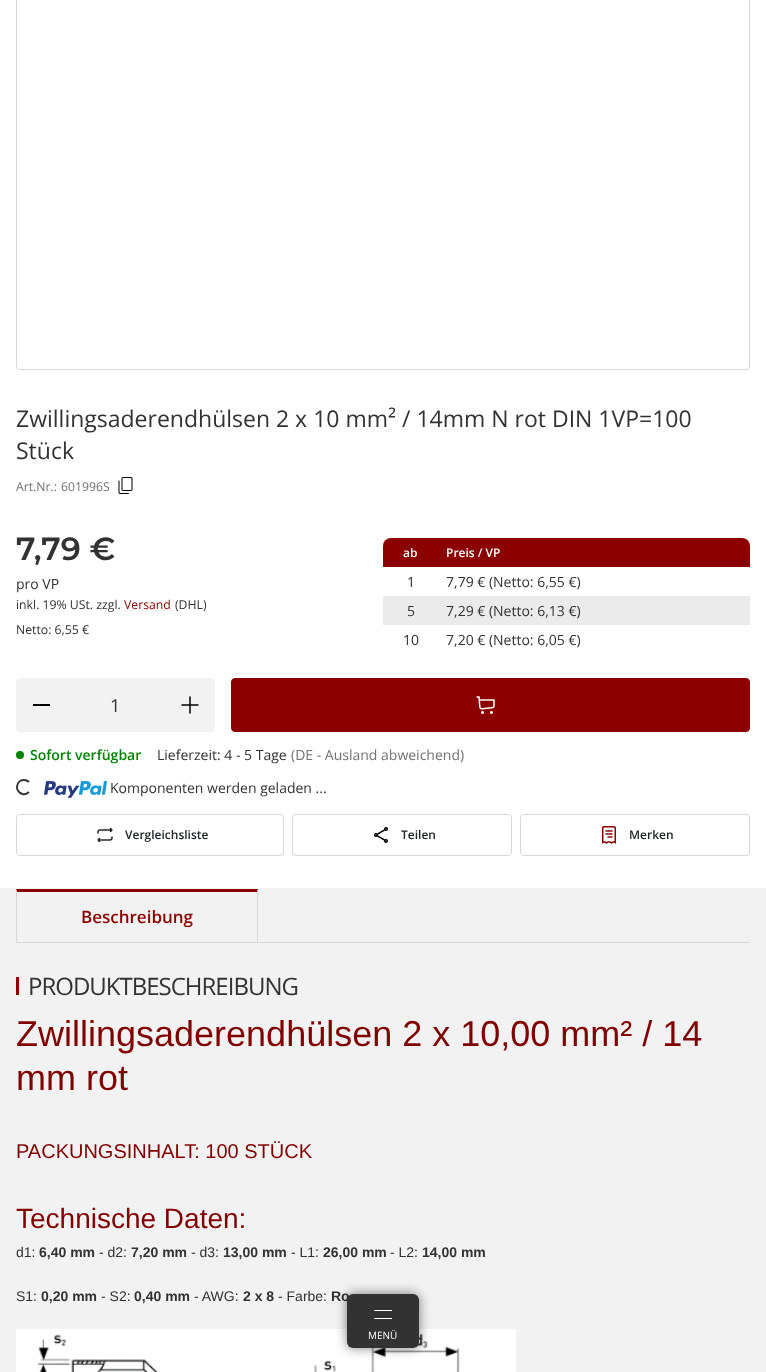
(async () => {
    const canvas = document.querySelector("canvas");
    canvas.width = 766;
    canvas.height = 1372;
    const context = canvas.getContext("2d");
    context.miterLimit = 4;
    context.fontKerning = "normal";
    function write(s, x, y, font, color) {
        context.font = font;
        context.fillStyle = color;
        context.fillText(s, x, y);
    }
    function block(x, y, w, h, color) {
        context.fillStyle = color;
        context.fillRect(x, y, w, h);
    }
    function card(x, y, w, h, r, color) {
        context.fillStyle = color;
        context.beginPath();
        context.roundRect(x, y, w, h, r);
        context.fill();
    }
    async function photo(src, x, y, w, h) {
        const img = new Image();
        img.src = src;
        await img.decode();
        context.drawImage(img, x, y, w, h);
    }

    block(0, 0, 766, 1372, "rgb(242, 242, 242)");
    block(0, 0, 766, 888, "rgb(255, 255, 255)");
    context.beginPath();
    context.roundRect(16.5, -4.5, 733, 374, 3.5);
    context.strokeStyle = "rgb(215, 215, 215)";
    context.stroke();
    write("Zwillingsaderendhülsen 2 x 10 mm² / 14mm N rot DIN 1VP=100", 16, 427, "23px Open Sans", "rgb(50, 50, 50)");
    write("Stück", 16, 459, "23px Open Sans", "rgb(50, 50, 50)");
    write("Art.Nr.:", 16, 491, "12.25px Open Sans", "rgb(114, 114, 114)");
    write("601996S", 61, 491, "12.25px Open Sans", "rgb(114, 114, 114)");
    await photo("media/1.png", 118, 477, 15, 17);
    write("7,79 €", 16, 560, "100 32px Montserrat", "rgb(50, 50, 50)");
    write("pro VP", 16, 589, "14px Open Sans", "rgb(50, 50, 50)");
    write("inkl. 19% USt. zzgl.", 16, 609, "12.25px Open Sans", "rgb(50, 50, 50)");
    write("Versand", 124, 609, "12.25px Open Sans", "rgb(138, 1, 0)");
    context.beginPath();
    context.moveTo(124.5, 610.5);
    context.lineTo(174.5, 610.5);
    context.strokeStyle = "rgb(226, 226, 226)";
    context.setLineDash([1, 1]);
    context.stroke();
    write("(DHL)", 175, 609, "12.25px Open Sans", "rgb(50, 50, 50)");
    write("Netto: 6,55 €", 16, 634, "12.25px Open Sans", "rgb(50, 50, 50)");
    context.fillStyle = "rgb(138, 1, 0)";
    context.beginPath();
    context.roundRect(383, 538, 367, 29, [8, 8, 0, 0]);
    context.fill();
    write("ab", 403, 557, "600 12px Open Sans", "rgb(255, 255, 255)");
    write("Preis / VP", 446, 557, "600 12px Open Sans", "rgb(255, 255, 255)");
    write("1", 407, 587, "14px Open Sans", "rgb(50, 50, 50)");
    write("7,79 € (Netto: 6,55 €)", 446, 587, "14px Open Sans", "rgb(50, 50, 50)");
    block(383, 596, 367, 29, "rgb(235, 235, 235)");
    write("5", 407, 616, "14px Open Sans", "rgb(50, 50, 50)");
    write("7,29 € (Netto: 6,13 €)", 446, 616, "14px Open Sans", "rgb(50, 50, 50)");
    write("10", 403, 645, "14px Open Sans", "rgb(50, 50, 50)");
    write("7,20 € (Netto: 6,05 €)", 446, 645, "14px Open Sans", "rgb(50, 50, 50)");
    context.fillStyle = "rgb(242, 242, 242)";
    context.beginPath();
    context.roundRect(16.5, 678.5, 198, 53, 3.5);
    context.fill();
    context.strokeStyle = "rgb(242, 242, 242)";
    context.setLineDash([]);
    context.stroke();
    block(33, 704, 17, 2, "rgb(0, 0, 0)");
    write("1", 110, 712, "18px Open Sans", "rgb(50, 50, 50)");
    await photo("media/2.png", 181, 696, 18, 18);
    context.fillStyle = "rgb(138, 1, 0)";
    context.beginPath();
    context.roundRect(231.5, 678.5, 518, 53, 3.5);
    context.fill();
    context.strokeStyle = "rgb(138, 1, 0)";
    context.stroke();
    await photo("media/3.png", 476, 696, 19, 18);
    context.fillStyle = "rgb(2, 131, 4)";
    context.beginPath();
    context.arc(20, 755, 4, 0, Math.PI * 2);
    context.fill();
    write("Sofort verfügbar", 30, 760, "600 14px Open Sans", "rgb(2, 131, 4)");
    write("Lieferzeit: 4 - 5 Tage", 157, 760, "14px Open Sans", "rgb(50, 50, 50)");
    write("(DE - Ausland abweichend)", 291, 760, "14px Open Sans", "rgb(114, 114, 114)");
    context.beginPath();
    context.moveTo(29, 792);
    context.bezierCurveTo(27.5, 793.5, 25, 794.5, 22.5, 794);
    context.bezierCurveTo(14.5, 792, 15.5, 780, 24, 780);
    context.bezierCurveTo(26, 780, 27.5, 780.5, 29, 782);
    context.strokeStyle = "rgb(50, 50, 50)";
    context.lineWidth = 2;
    context.stroke();
    await photo("media/4.png", 44, 781, 63, 17);
    write("Komponenten werden geladen ...", 110, 793, "14px Open Sans", "rgb(50, 50, 50)");
    context.beginPath();
    context.roundRect(16.5, 814.5, 267, 41, 3.5);
    context.strokeStyle = "rgb(215, 215, 215)";
    context.lineWidth = 1;
    context.stroke();
    await photo("media/5.png", 97, 827, 16, 16);
    write("Vergleichsliste", 125, 839, "600 12px Open Sans", "rgb(33, 37, 41)");
    context.beginPath();
    context.roundRect(292.5, 814.5, 219, 41, 3.5);
    context.stroke();
    await photo("media/6.png", 374, 827, 14, 16);
    write("Teilen", 401, 839, "600 12px Open Sans", "rgb(33, 37, 41)");
    context.beginPath();
    context.roundRect(520.5, 814.5, 229, 41, 3.5);
    context.stroke();
    await photo("media/7.png", 602, 826, 14, 18);
    write("Merken", 629, 839, "600 12px Open Sans", "rgb(33, 37, 41)");
    block(16, 942, 734, 1, "rgb(215, 215, 215)");
    context.fillStyle = "rgb(138, 1, 0)";
    context.beginPath();
    context.moveTo(16, 889);
    context.lineTo(258, 889);
    context.lineTo(257, 892);
    context.lineTo(17, 892);
    context.closePath();
    context.fill();
    context.fillStyle = "rgb(215, 215, 215)";
    context.beginPath();
    context.moveTo(258, 889);
    context.lineTo(258, 942);
    context.lineTo(257, 941);
    context.lineTo(257, 892);
    context.closePath();
    context.fill();
    context.beginPath();
    context.moveTo(16, 942);
    context.lineTo(16, 889);
    context.lineTo(17, 892);
    context.lineTo(17, 941);
    context.closePath();
    context.fill();
    write("Beschreibung", 81, 923, "600 17px Open Sans", "rgb(138, 1, 0)");
    block(16, 977, 3, 18, "rgb(138, 1, 0)");
    context.letterSpacing = "-1px";
    write("PRODUKTBESCHREIBUNG", 28, 995, "24px Open Sans", "rgb(50, 50, 50)");
    context.letterSpacing = "0px";
    write("Zwillingsaderendhülsen 2 x 10,00 mm² / 14", 16, 1046, "36px Liberation Sans", "rgb(128, 0, 0)");
    write("mm rot", 16, 1090, "36px Liberation Sans", "rgb(128, 0, 0)");
    write("PACKUNGSINHALT: 100 STÜCK", 16, 1158, "20px Liberation Sans", "rgb(128, 0, 0)");
    write("Technische Daten:", 16, 1228, "28px Liberation Sans", "rgb(128, 0, 0)");
    write("d1:", 16, 1257, "14px Liberation Sans", "rgb(50, 50, 50)");
    write("6,40 mm", 39, 1257, "bold 14px Liberation Sans", "rgb(50, 50, 50)");
    write("- d2:", 99, 1257, "14px Liberation Sans", "rgb(50, 50, 50)");
    write("7,20 mm", 131, 1257, "bold 14px Liberation Sans", "rgb(50, 50, 50)");
    write("- d3:", 191, 1257, "14px Liberation Sans", "rgb(50, 50, 50)");
    write("13,00 mm", 223, 1257, "bold 14px Liberation Sans", "rgb(50, 50, 50)");
    write("- L1:", 291, 1257, "14px Liberation Sans", "rgb(50, 50, 50)");
    write("26,00 mm", 323, 1257, "bold 14px Liberation Sans", "rgb(50, 50, 50)");
    write("- L2:", 390, 1257, "14px Liberation Sans", "rgb(50, 50, 50)");
    write("14,00 mm", 422, 1257, "bold 14px Liberation Sans", "rgb(50, 50, 50)");
    write("S1:", 16, 1301, "14px Liberation Sans", "rgb(50, 50, 50)");
    write("0,20 mm", 41, 1301, "bold 14px Liberation Sans", "rgb(50, 50, 50)");
    write("- S2:", 101, 1301, "14px Liberation Sans", "rgb(50, 50, 50)");
    write("0,40 mm", 134, 1301, "bold 14px Liberation Sans", "rgb(50, 50, 50)");
    write("- AWG:", 194, 1301, "14px Liberation Sans", "rgb(50, 50, 50)");
    write("2 x 8", 243, 1301, "bold 14px Liberation Sans", "rgb(50, 50, 50)");
    write("- Farbe:", 278, 1301, "14px Liberation Sans", "rgb(50, 50, 50)");
    write("Ro", 331, 1301, "bold 14px Liberation Sans", "rgb(50, 50, 50)");
    await photo("media/8.png", 16, 1329, 500, 43);
    context.fillStyle = "rgba(0, 0, 0, 0.5)";
    context.filter = "blur(6px)";
    context.beginPath();
    context.roundRect(347, 1294, 72, 54, 6);
    context.fill();
    context.filter = "none";
    card(347, 1294, 72, 54, 6, "rgb(50, 50, 50)");
    block(374, 1310, 18, 1, "rgb(255, 255, 255)");
    block(374, 1318, 18, 1, "rgb(255, 255, 255)");
    write("MENÜ", 368, 1339, "10px Open Sans", "rgb(255, 255, 255)");
})();
